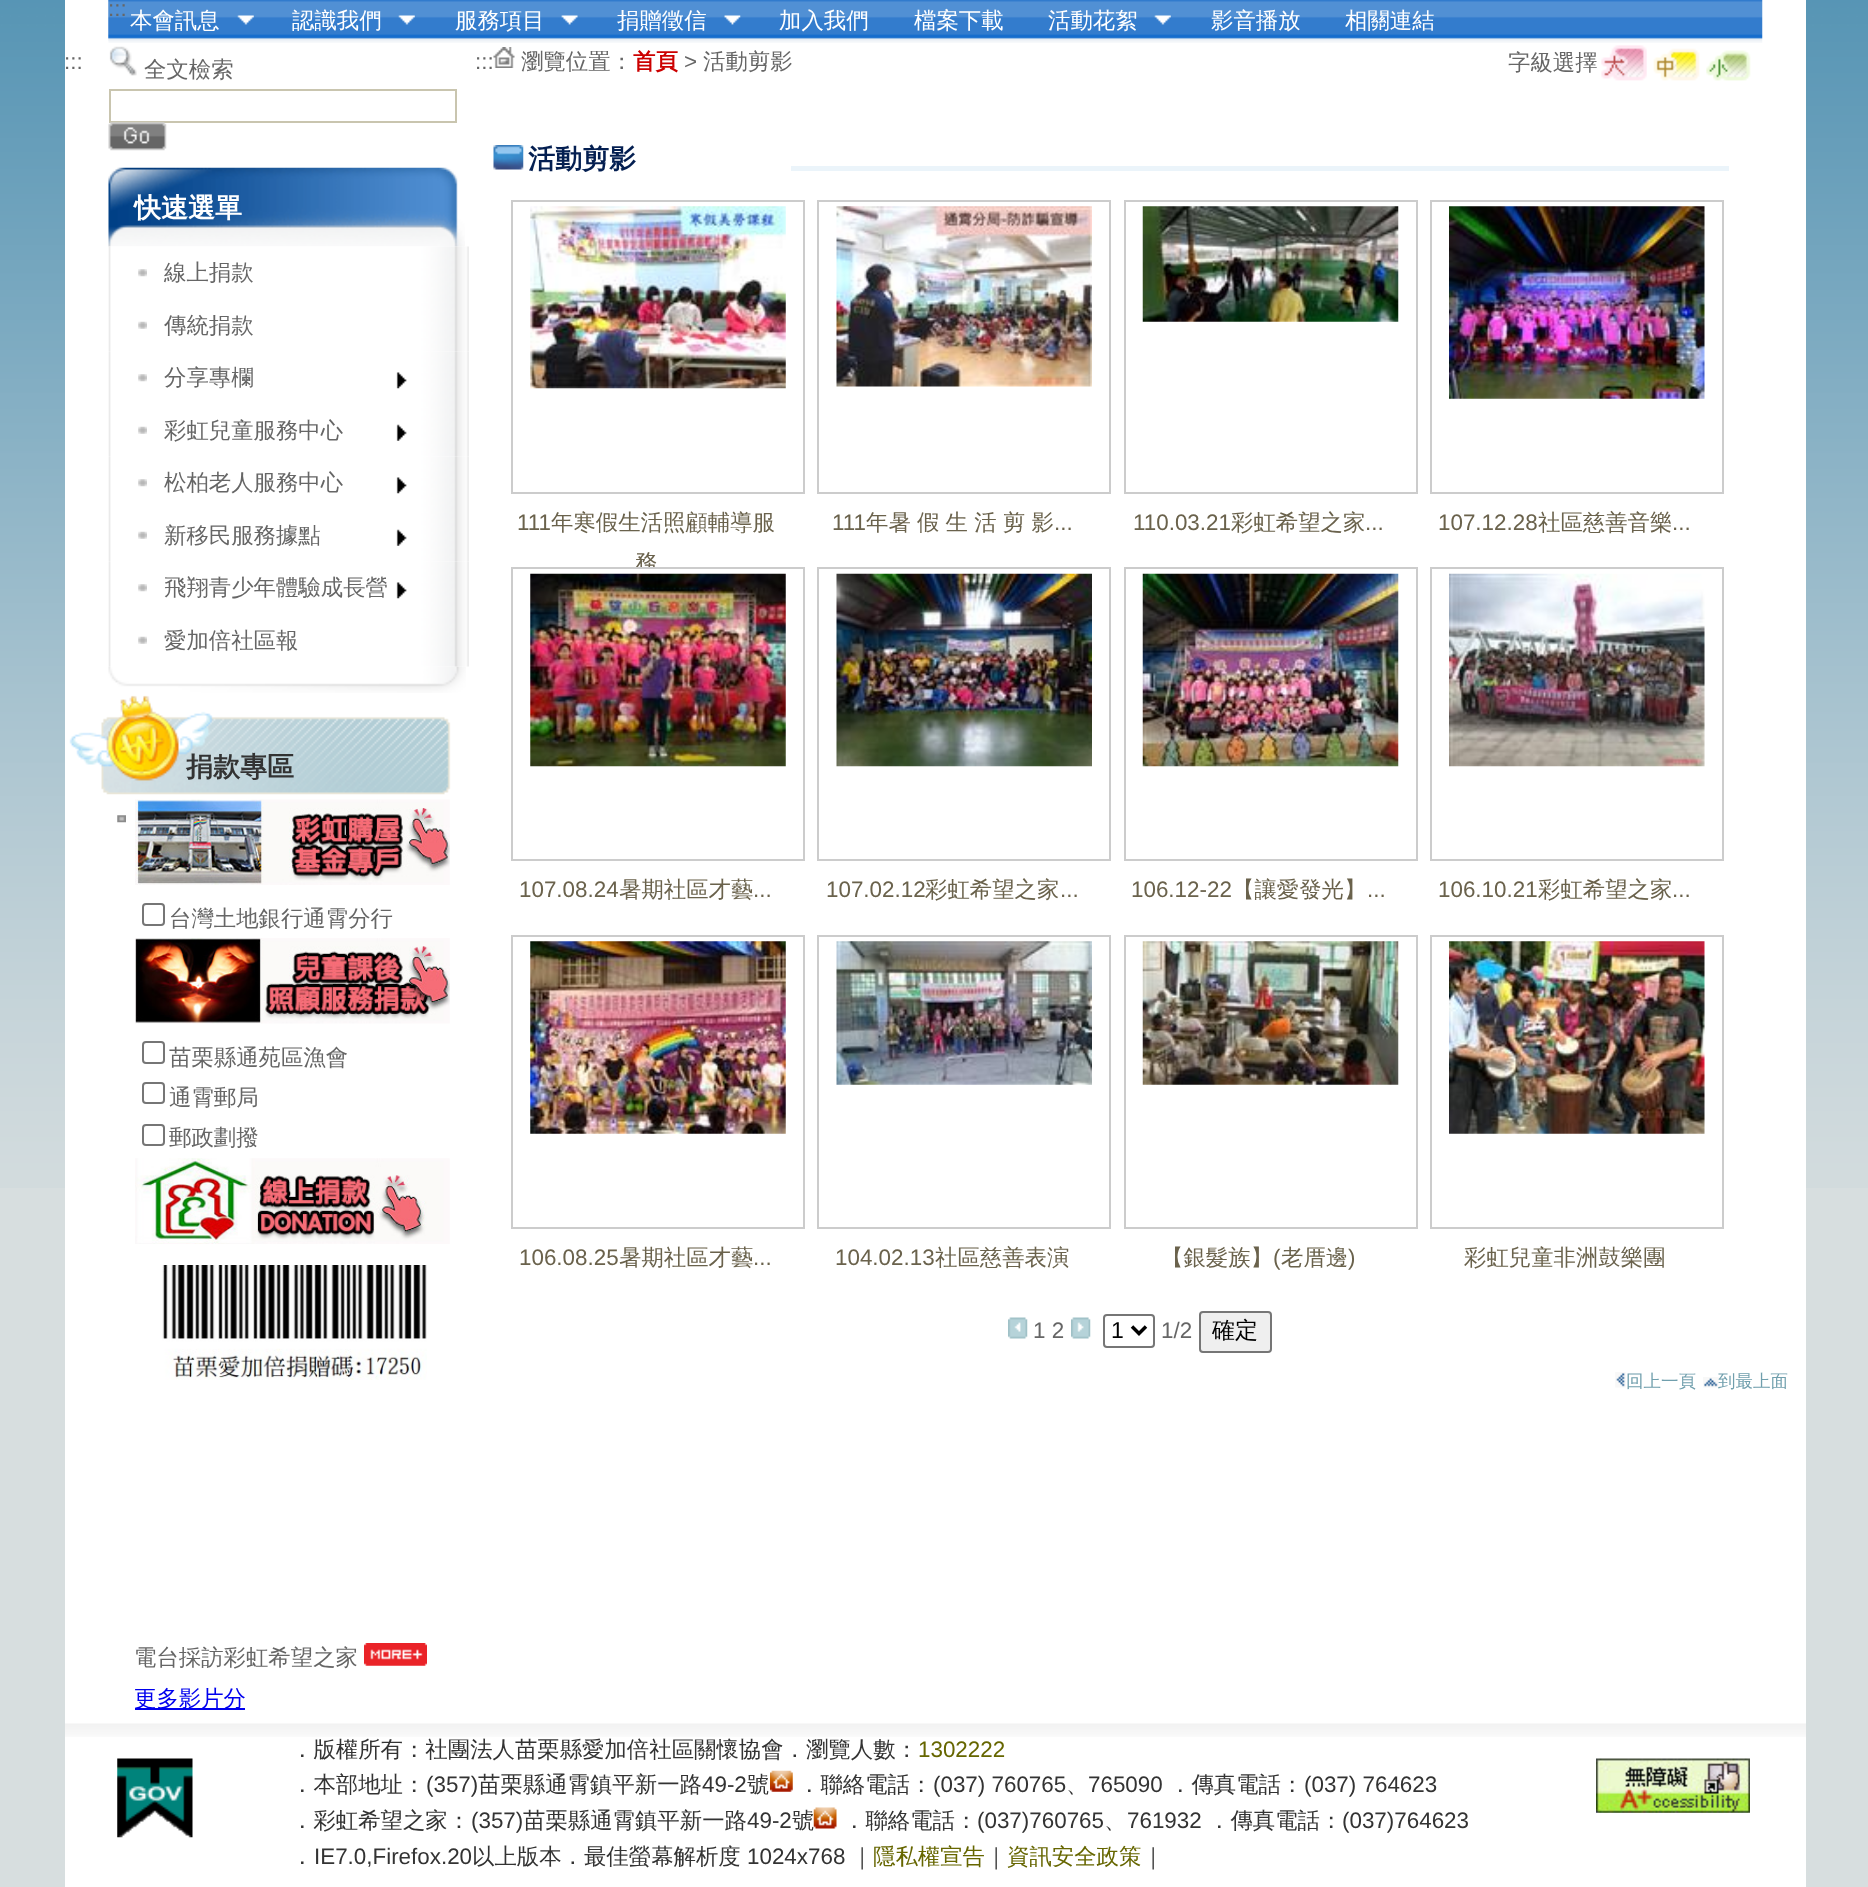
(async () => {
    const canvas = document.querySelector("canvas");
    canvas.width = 1868;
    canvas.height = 1887;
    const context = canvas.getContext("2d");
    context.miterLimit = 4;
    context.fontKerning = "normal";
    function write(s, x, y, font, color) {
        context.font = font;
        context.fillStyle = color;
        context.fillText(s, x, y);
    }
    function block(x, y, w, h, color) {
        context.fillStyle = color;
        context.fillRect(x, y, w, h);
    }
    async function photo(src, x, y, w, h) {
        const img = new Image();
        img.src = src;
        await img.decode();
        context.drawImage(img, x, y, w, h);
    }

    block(0, 0, 1868, 1887, "rgb(215, 222, 223)");
    await photo("media/1.png", 0, 0, 1868, 1188);
    block(65, 0, 1741, 1887, "rgb(255, 255, 255)");
    await photo("media/2.png", 108, 0, 1655, 43);
    write(":::", 108, 16, "22.4px Liberation Sans", "rgb(102, 102, 102)");
    await photo("media/3.png", 108, 0, 1, 41);
    write("本會訊息", 130, 28, "500 22.4px WenQuanYi Zen Hei", "rgb(255, 255, 255)");
    await photo("media/4.png", 237, 15, 17, 10);
    write("認識我們", 292, 28, "500 22.4px WenQuanYi Zen Hei", "rgb(255, 255, 255)");
    await photo("media/4.png", 398, 15, 17, 10);
    write("服務項目", 455, 28, "500 22.4px WenQuanYi Zen Hei", "rgb(255, 255, 255)");
    await photo("media/5.png", 561, 15, 17, 10);
    write("捐贈徵信", 617, 28, "500 22.4px WenQuanYi Zen Hei", "rgb(255, 255, 255)");
    await photo("media/6.png", 724, 15, 17, 10);
    write("加入我們", 779, 28, "500 22.4px WenQuanYi Zen Hei", "rgb(255, 255, 255)");
    write("檔案下載", 914, 28, "500 22.4px WenQuanYi Zen Hei", "rgb(255, 255, 255)");
    write("活動花絮", 1048, 28, "500 22.4px WenQuanYi Zen Hei", "rgb(255, 255, 255)");
    await photo("media/4.png", 1154, 15, 17, 10);
    write("影音播放", 1211, 28, "500 22.4px WenQuanYi Zen Hei", "rgb(255, 255, 255)");
    write("相關連結", 1345, 28, "500 22.4px WenQuanYi Zen Hei", "rgb(255, 255, 255)");
    write(":::", 64, 69, "22.4px Liberation Sans", "rgb(102, 102, 102)");
    await photo("media/7.png", 109, 46, 28, 30);
    write("全文檢索", 144, 77, "500 22.4px WenQuanYi Zen Hei", "rgb(102, 102, 102)");
    context.strokeStyle = "rgb(201, 197, 175)";
    context.lineWidth = 2;
    context.strokeRect(110, 90, 346, 32);
    await photo("media/8.png", 108, 122, 59, 29);
    await photo("media/9.png", 108, 167, 357, 80);
    write("快速選單", 134, 217, "bold 27px WenQuanYi Zen Hei", "rgb(255, 255, 255)");
    await photo("media/10.png", 108, 666, 358, 27);
    await photo("media/11.png", 108, 246, 361, 53);
    await photo("media/12.png", 138, 269, 9, 8);
    write("線上捐款", 164, 280, "500 22.4px WenQuanYi Zen Hei", "rgb(102, 102, 102)");
    await photo("media/13.png", 108, 299, 361, 53);
    await photo("media/14.png", 138, 321, 9, 8);
    write("傳統捐款", 164, 333, "500 22.4px WenQuanYi Zen Hei", "rgb(102, 102, 102)");
    await photo("media/15.png", 108, 351, 361, 53);
    await photo("media/12.png", 138, 374, 9, 8);
    write("分享專欄", 164, 385, "500 22.4px WenQuanYi Zen Hei", "rgb(102, 102, 102)");
    await photo("media/16.png", 396, 372, 11, 17);
    await photo("media/13.png", 108, 404, 361, 53);
    await photo("media/14.png", 138, 426, 9, 8);
    write("彩虹兒童服務中心", 164, 438, "500 22.4px WenQuanYi Zen Hei", "rgb(102, 102, 102)");
    await photo("media/17.png", 396, 424, 11, 17);
    await photo("media/15.png", 108, 456, 361, 53);
    await photo("media/12.png", 138, 479, 9, 8);
    write("松柏老人服務中心", 164, 490, "500 22.4px WenQuanYi Zen Hei", "rgb(102, 102, 102)");
    await photo("media/16.png", 396, 477, 11, 17);
    await photo("media/13.png", 108, 509, 361, 53);
    await photo("media/14.png", 138, 531, 9, 8);
    write("新移民服務據點", 164, 543, "500 22.4px WenQuanYi Zen Hei", "rgb(102, 102, 102)");
    await photo("media/17.png", 396, 529, 11, 17);
    await photo("media/15.png", 108, 561, 361, 53);
    await photo("media/12.png", 138, 584, 9, 8);
    write("飛翔青少年體驗成長營", 164, 595, "500 22.4px WenQuanYi Zen Hei", "rgb(102, 102, 102)");
    await photo("media/16.png", 396, 582, 11, 17);
    await photo("media/18.png", 108, 614, 361, 53);
    await photo("media/14.png", 138, 636, 9, 8);
    write("愛加倍社區報", 164, 648, "500 22.4px WenQuanYi Zen Hei", "rgb(102, 102, 102)");
    await photo("media/19.png", 69, 695, 382, 100);
    write("捐款專區", 186, 776, "bold 27px WenQuanYi Zen Hei", "rgb(51, 51, 51)");
    await photo("media/20.png", 117, 815, 9, 8);
    await photo("media/21.png", 135, 799, 315, 86);
    context.beginPath();
    context.roundRect(143, 904, 21, 21, 3);
    context.strokeStyle = "rgb(118, 118, 118)";
    context.stroke();
    write("台灣土地銀行通霄分行", 169, 926, "500 22.4px WenQuanYi Zen Hei", "rgb(102, 102, 102)");
    await photo("media/22.png", 135, 938, 315, 86);
    context.beginPath();
    context.roundRect(143, 1042, 21, 21, 3);
    context.stroke();
    write("苗栗縣通苑區漁會", 169, 1065, "500 22.4px WenQuanYi Zen Hei", "rgb(102, 102, 102)");
    context.beginPath();
    context.roundRect(143, 1083, 21, 20, 3);
    context.stroke();
    write("通霄郵局", 169, 1105, "500 22.4px WenQuanYi Zen Hei", "rgb(102, 102, 102)");
    context.beginPath();
    context.roundRect(143, 1125, 21, 20, 3);
    context.stroke();
    write("郵政劃撥", 169, 1145, "500 22.4px WenQuanYi Zen Hei", "rgb(102, 102, 102)");
    await photo("media/23.png", 135, 1158, 315, 86);
    await photo("media/24.png", 162, 1265, 265, 115);
    write("電台採訪彩虹希望之家", 134, 1665, "500 22.4px WenQuanYi Zen Hei", "rgb(102, 102, 102)");
    await photo("media/25.png", 364, 1643, 63, 23);
    block(135, 1708, 110, 2, "rgb(0, 0, 238)");
    write("更多影片分", 134, 1706, "500 22.4px WenQuanYi Zen Hei", "rgb(0, 0, 238)");
    write(":::", 475, 69, "22.4px Liberation Sans", "rgb(102, 102, 102)");
    await photo("media/26.png", 493, 47, 22, 21);
    write("瀏覽位置：", 521, 69, "500 22.4px WenQuanYi Zen Hei", "rgb(102, 102, 102)");
    write("首頁", 633, 69, "bold 22.4px WenQuanYi Zen Hei", "rgb(204, 0, 0)");
    write(">", 684, 69, "22.4px Liberation Sans", "rgb(102, 102, 102)");
    write("活動剪影", 703, 69, "500 22.4px WenQuanYi Zen Hei", "rgb(102, 102, 102)");
    write("字級選擇", 1508, 70, "500 22.4px WenQuanYi Zen Hei", "rgb(102, 102, 102)");
    await photo("media/27.png", 1601, 45, 46, 36);
    await photo("media/28.png", 1653, 48, 47, 33);
    await photo("media/29.png", 1706, 50, 45, 31);
    await photo("media/30.png", 493, 145, 31, 25);
    write("活動剪影", 528, 168, "bold 27px WenQuanYi Zen Hei", "rgb(4, 31, 81)");
    block(791, 166, 938, 5, "rgb(235, 244, 250)");
    context.strokeStyle = "rgb(204, 204, 204)";
    context.strokeRect(512, 201, 292, 292);
    await photo("media/31.png", 530, 206, 256, 183);
    write("111", 517, 530, "22.4px Liberation Sans", "rgb(106, 98, 76)");
    write("年寒假生活照顧輔導服", 551, 530, "500 22.4px WenQuanYi Zen Hei", "rgb(106, 98, 76)");
    write("務", 635, 570, "500 22.4px WenQuanYi Zen Hei", "rgb(106, 98, 76)");
    context.strokeRect(818, 201, 292, 292);
    await photo("media/32.png", 836, 206, 256, 181);
    write("111", 832, 530, "22.4px Liberation Sans", "rgb(106, 98, 76)");
    context.wordSpacing = "-0.5px";
    write("年暑 假 生 活 剪 影", 866, 530, "500 22.4px WenQuanYi Zen Hei", "rgb(106, 98, 76)");
    context.wordSpacing = "0px";
    write("...", 1054, 530, "22.4px Liberation Sans", "rgb(106, 98, 76)");
    context.strokeRect(1125, 201, 292, 292);
    await photo("media/33.png", 1142, 206, 257, 116);
    write("110.03.21", 1133, 530, "22.4px Liberation Sans", "rgb(106, 98, 76)");
    write("彩虹希望之家", 1231, 530, "500 22.4px WenQuanYi Zen Hei", "rgb(106, 98, 76)");
    write("...", 1365, 530, "22.4px Liberation Sans", "rgb(106, 98, 76)");
    context.strokeRect(1431, 201, 292, 292);
    await photo("media/34.png", 1449, 206, 256, 193);
    write("107.12.28", 1438, 530, "22.4px Liberation Sans", "rgb(106, 98, 76)");
    write("社區慈善音樂", 1538, 530, "500 22.4px WenQuanYi Zen Hei", "rgb(106, 98, 76)");
    write("...", 1672, 530, "22.4px Liberation Sans", "rgb(106, 98, 76)");
    block(637, 569, 18, 4, "rgb(255, 255, 255)");
    context.strokeRect(512, 568, 292, 292);
    await photo("media/35.png", 530, 573, 256, 194);
    write("107.08.24", 519, 897, "22.4px Liberation Sans", "rgb(106, 98, 76)");
    write("暑期社區才藝", 619, 897, "500 22.4px WenQuanYi Zen Hei", "rgb(106, 98, 76)");
    write("...", 753, 897, "22.4px Liberation Sans", "rgb(106, 98, 76)");
    context.strokeRect(818, 568, 292, 292);
    await photo("media/36.png", 836, 573, 256, 194);
    write("107.02.12", 826, 897, "22.4px Liberation Sans", "rgb(106, 98, 76)");
    write("彩虹希望之家", 925, 897, "500 22.4px WenQuanYi Zen Hei", "rgb(106, 98, 76)");
    write("...", 1060, 897, "22.4px Liberation Sans", "rgb(106, 98, 76)");
    context.strokeRect(1125, 568, 292, 292);
    await photo("media/37.png", 1142, 573, 257, 194);
    write("106.12-22", 1131, 897, "22.4px Liberation Sans", "rgb(106, 98, 76)");
    write("【讓愛發光】", 1232, 897, "500 22.4px WenQuanYi Zen Hei", "rgb(106, 98, 76)");
    write("...", 1367, 897, "22.4px Liberation Sans", "rgb(106, 98, 76)");
    context.strokeRect(1431, 568, 292, 292);
    await photo("media/38.png", 1449, 573, 256, 194);
    write("106.10.21", 1438, 897, "22.4px Liberation Sans", "rgb(106, 98, 76)");
    write("彩虹希望之家", 1538, 897, "500 22.4px WenQuanYi Zen Hei", "rgb(106, 98, 76)");
    write("...", 1672, 897, "22.4px Liberation Sans", "rgb(106, 98, 76)");
    context.strokeRect(512, 936, 292, 292);
    await photo("media/39.png", 530, 941, 256, 193);
    write("106.08.25", 519, 1265, "22.4px Liberation Sans", "rgb(106, 98, 76)");
    write("暑期社區才藝", 619, 1265, "500 22.4px WenQuanYi Zen Hei", "rgb(106, 98, 76)");
    write("...", 753, 1265, "22.4px Liberation Sans", "rgb(106, 98, 76)");
    context.strokeRect(818, 936, 292, 292);
    await photo("media/40.png", 836, 941, 256, 144);
    write("104.02.13", 835, 1265, "22.4px Liberation Sans", "rgb(106, 98, 76)");
    write("社區慈善表演", 935, 1265, "500 22.4px WenQuanYi Zen Hei", "rgb(106, 98, 76)");
    context.strokeRect(1125, 936, 292, 292);
    await photo("media/41.png", 1142, 941, 257, 144);
    write("【銀髮族】", 1161, 1265, "500 22.4px WenQuanYi Zen Hei", "rgb(106, 98, 76)");
    write("(", 1273, 1265, "22.4px Liberation Sans", "rgb(106, 98, 76)");
    write("老厝邊", 1281, 1265, "500 22.4px WenQuanYi Zen Hei", "rgb(106, 98, 76)");
    write(")", 1348, 1265, "22.4px Liberation Sans", "rgb(106, 98, 76)");
    context.strokeRect(1431, 936, 292, 292);
    await photo("media/42.png", 1449, 941, 256, 193);
    write("彩虹兒童非洲鼓樂團", 1464, 1265, "500 22.4px WenQuanYi Zen Hei", "rgb(106, 98, 76)");
    await photo("media/43.png", 1008, 1317, 20, 22);
    write("1 2", 1033, 1338, "22.4px Liberation Sans", "rgb(102, 102, 102)");
    await photo("media/44.png", 1071, 1317, 20, 22);
    context.beginPath();
    context.roundRect(1104, 1315, 50, 32, 3);
    context.strokeStyle = "rgb(118, 118, 118)";
    context.stroke();
    context.beginPath();
    context.moveTo(1132, 1326.5);
    context.lineTo(1139, 1333.5);
    context.lineTo(1146, 1326.5);
    context.strokeStyle = "rgb(0, 0, 0)";
    context.lineWidth = 3.5;
    context.stroke();
    write("1", 1111, 1338, "23px Liberation Sans", "rgb(0, 0, 0)");
    write("1/2", 1161, 1338, "22.4px Liberation Sans", "rgb(102, 102, 102)");
    context.fillStyle = "rgb(239, 239, 239)";
    context.beginPath();
    context.roundRect(1200, 1312, 71, 40, 3);
    context.fill();
    context.strokeStyle = "rgb(118, 118, 118)";
    context.lineWidth = 2;
    context.stroke();
    write("確定", 1212, 1338, "500 23px WenQuanYi Zen Hei", "rgb(0, 0, 0)");
    await photo("media/45.png", 1615, 1372, 11, 16);
    write("回上一頁", 1626, 1387, "500 17.5px WenQuanYi Zen Hei", "rgb(112, 159, 173)");
    await photo("media/46.png", 1703, 1377, 16, 11);
    write("到最上面", 1718, 1387, "500 17.5px WenQuanYi Zen Hei", "rgb(112, 159, 173)");
    await photo("media/47.png", 65, 1723, 1741, 14);
    await photo("media/48.png", 117, 1758, 76, 80);
    write("．版權所有：社團法人苗栗縣愛加倍社區關懷協會．瀏覽人數：", 291, 1757, "500 22.4px WenQuanYi Zen Hei", "rgb(51, 51, 51)");
    write("1302222", 918, 1757, "22.4px Liberation Sans", "rgb(102, 102, 0)");
    write("．本部地址：", 291, 1792, "500 22.4px WenQuanYi Zen Hei", "rgb(51, 51, 51)");
    write("(357)", 426, 1792, "22.4px Liberation Sans", "rgb(51, 51, 51)");
    write("苗栗縣通霄鎮平新一路", 478, 1792, "500 22.4px WenQuanYi Zen Hei", "rgb(51, 51, 51)");
    write("49-2", 702, 1792, "22.4px Liberation Sans", "rgb(51, 51, 51)");
    write("號", 747, 1792, "500 22.4px WenQuanYi Zen Hei", "rgb(51, 51, 51)");
    await photo("media/49.png", 770, 1770, 23, 22);
    write("．聯絡電話：", 798, 1792, "500 22.4px WenQuanYi Zen Hei", "rgb(51, 51, 51)");
    write("(037) 760765", 933, 1792, "22.4px Liberation Sans", "rgb(51, 51, 51)");
    write("、", 1066, 1792, "500 22.4px WenQuanYi Zen Hei", "rgb(51, 51, 51)");
    write("765090", 1088, 1792, "22.4px Liberation Sans", "rgb(51, 51, 51)");
    write("．傳真電話：", 1169, 1792, "500 22.4px WenQuanYi Zen Hei", "rgb(51, 51, 51)");
    write("(037) 764623", 1304, 1792, "22.4px Liberation Sans", "rgb(51, 51, 51)");
    write("．彩虹希望之家：", 291, 1828, "500 22.4px WenQuanYi Zen Hei", "rgb(51, 51, 51)");
    write("(357)", 471, 1828, "22.4px Liberation Sans", "rgb(51, 51, 51)");
    write("苗栗縣通霄鎮平新一路", 523, 1828, "500 22.4px WenQuanYi Zen Hei", "rgb(51, 51, 51)");
    write("49-2", 747, 1828, "22.4px Liberation Sans", "rgb(51, 51, 51)");
    write("號", 792, 1828, "500 22.4px WenQuanYi Zen Hei", "rgb(51, 51, 51)");
    await photo("media/50.png", 813, 1807, 24, 22);
    write("．聯絡電話：", 843, 1828, "500 22.4px WenQuanYi Zen Hei", "rgb(51, 51, 51)");
    write("(037)760765", 977, 1828, "22.4px Liberation Sans", "rgb(51, 51, 51)");
    write("、", 1104, 1828, "500 22.4px WenQuanYi Zen Hei", "rgb(51, 51, 51)");
    write("761932", 1127, 1828, "22.4px Liberation Sans", "rgb(51, 51, 51)");
    write("．傳真電話：", 1208, 1828, "500 22.4px WenQuanYi Zen Hei", "rgb(51, 51, 51)");
    write("(037)764623", 1342, 1828, "22.4px Liberation Sans", "rgb(51, 51, 51)");
    write("．", 291, 1864, "500 22.4px WenQuanYi Zen Hei", "rgb(51, 51, 51)");
    write("IE7.0,Firefox.20", 314, 1864, "22.4px Liberation Sans", "rgb(51, 51, 51)");
    write("以上版本．最佳螢幕解析度", 472, 1864, "500 22.4px WenQuanYi Zen Hei", "rgb(51, 51, 51)");
    write("1024x768", 747, 1864, "22.4px Liberation Sans", "rgb(51, 51, 51)");
    write("｜", 851, 1864, "500 22.4px WenQuanYi Zen Hei", "rgb(51, 51, 51)");
    write("隱私權宣告", 873, 1864, "500 22.4px WenQuanYi Zen Hei", "rgb(102, 102, 0)");
    write("｜", 985, 1864, "500 22.4px WenQuanYi Zen Hei", "rgb(51, 51, 51)");
    write("資訊安全政策", 1007, 1864, "500 22.4px WenQuanYi Zen Hei", "rgb(102, 102, 0)");
    write("｜", 1142, 1864, "500 22.4px WenQuanYi Zen Hei", "rgb(51, 51, 51)");
    await photo("media/51.png", 1596, 1758, 154, 55);
})();
